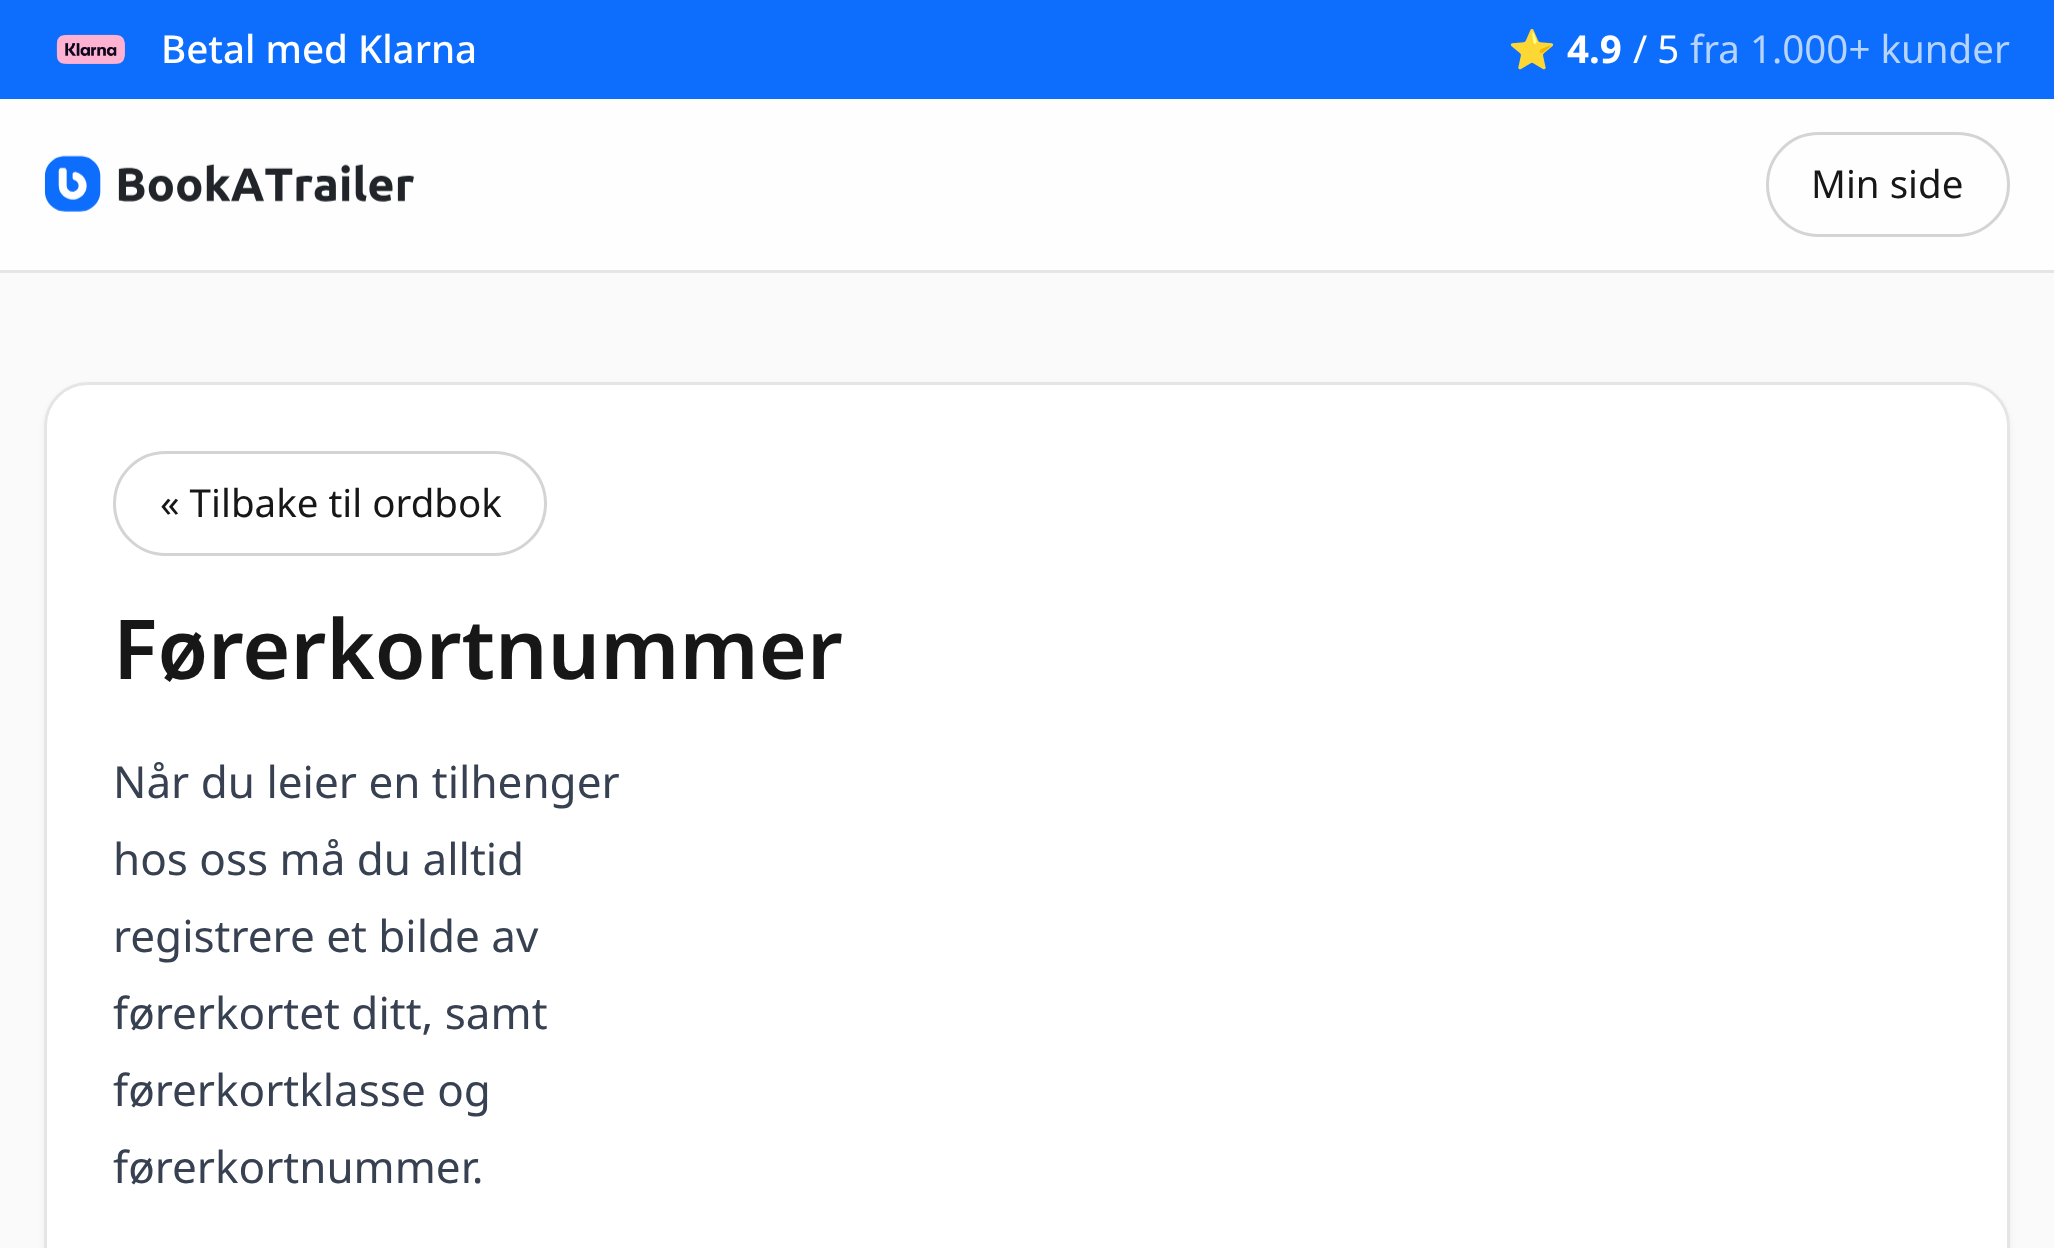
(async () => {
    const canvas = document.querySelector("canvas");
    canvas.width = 2054;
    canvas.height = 1248;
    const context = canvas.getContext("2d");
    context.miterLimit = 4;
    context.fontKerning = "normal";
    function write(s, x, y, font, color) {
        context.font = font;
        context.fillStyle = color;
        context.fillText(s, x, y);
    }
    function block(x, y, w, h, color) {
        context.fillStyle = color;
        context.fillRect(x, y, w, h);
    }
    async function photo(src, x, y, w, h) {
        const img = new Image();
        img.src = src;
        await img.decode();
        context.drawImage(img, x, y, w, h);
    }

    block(0, 0, 2054, 1248, "rgb(250, 250, 250)");
    block(0, 0, 2054, 99, "rgb(13, 110, 253)");
    await photo("media/1.png", 56, 34, 69, 30);
    write("Betal med Klarna", 161, 63, "500 38.5px Noto Sans", "rgb(255, 255, 255)");
    write("⭐", 1508, 63, "38.5px Noto Color Emoji", "rgb(255, 255, 255)");
    write("4.9", 1567, 63, "bold 38.5px Noto Sans", "rgb(255, 255, 255)");
    write("/ 5", 1633, 63, "38.5px Noto Sans", "rgb(255, 255, 255)");
    write("fra 1.000+ kunder", 1690, 63, "38.5px Noto Sans", "rgb(182, 212, 254)");
    block(0, 99, 2054, 171, "rgb(254, 254, 254)");
    block(0, 270, 2054, 3, "rgb(229, 229, 229)");
    await photo("media/2.png", 44, 155, 370, 57);
    context.beginPath();
    context.roundRect(1767.5, 133.5, 241, 102, 51);
    context.strokeStyle = "rgb(212, 212, 212)";
    context.lineWidth = 3;
    context.stroke();
    write("Min side", 1811, 198, "38.5px Noto Sans", "rgb(23, 23, 23)");
    context.fillStyle = "rgba(0, 0, 0, 0.05)";
    context.filter = "blur(3px)";
    context.beginPath();
    context.roundRect(44, 385, 1966, 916, 44);
    context.fill();
    context.filter = "none";
    context.fillStyle = "rgb(255, 255, 255)";
    context.beginPath();
    context.roundRect(45.5, 383.5, 1963, 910, 42.5);
    context.fill();
    context.strokeStyle = "rgb(229, 229, 229)";
    context.stroke();
    context.beginPath();
    context.roundRect(114.5, 452.5, 431, 102, 51);
    context.strokeStyle = "rgb(212, 212, 212)";
    context.stroke();
    write("« Tilbake til ordbok", 160, 517, "38.5px Noto Sans", "rgb(23, 23, 23)");
    write("Førerkortnummer", 113, 679, "600 82.5px Noto Sans", "rgb(23, 23, 23)");
    write("Når du leier en tilhenger", 113, 798, "44px Noto Sans", "rgb(55, 65, 81)");
    write("hos oss må du alltid", 113, 875, "44px Noto Sans", "rgb(55, 65, 81)");
    write("registrere et bilde av", 113, 952, "44px Noto Sans", "rgb(55, 65, 81)");
    write("førerkortet ditt, samt", 113, 1029, "44px Noto Sans", "rgb(55, 65, 81)");
    write("førerkortklasse og", 113, 1106, "44px Noto Sans", "rgb(55, 65, 81)");
    write("førerkortnummer.", 113, 1183, "44px Noto Sans", "rgb(55, 65, 81)");
})();
